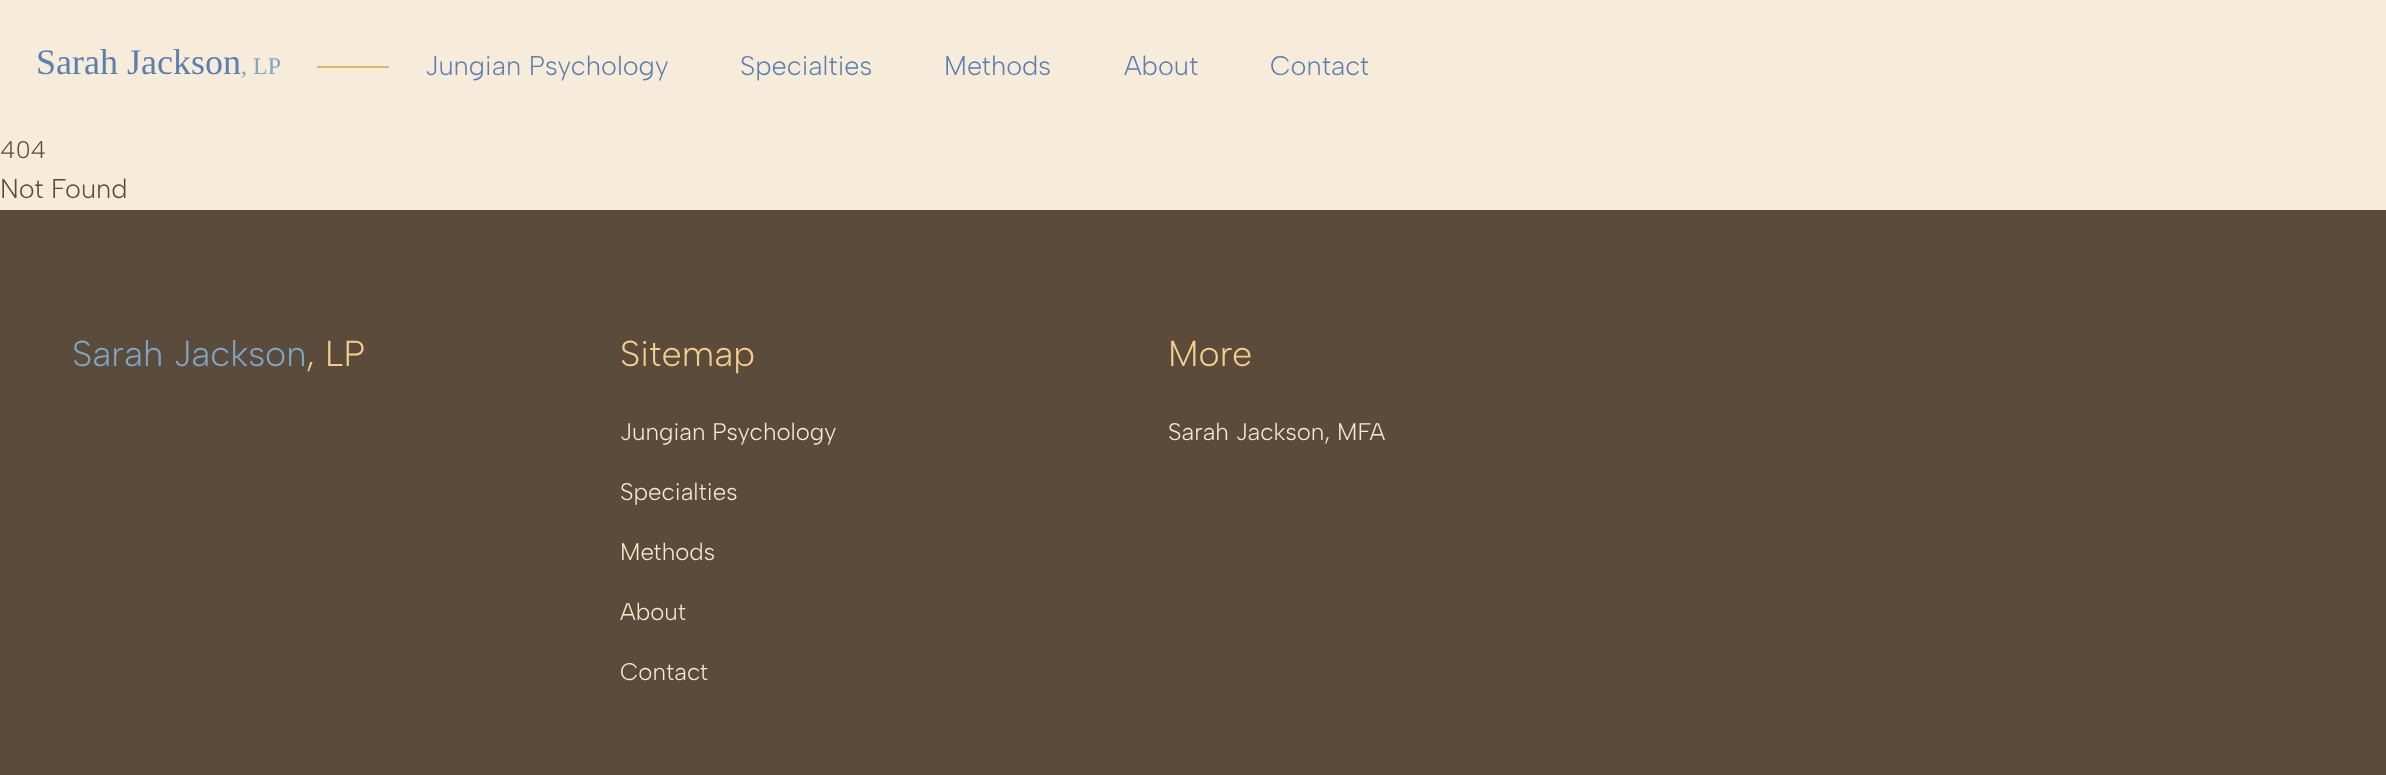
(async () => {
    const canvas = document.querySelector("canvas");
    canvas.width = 2386;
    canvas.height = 775;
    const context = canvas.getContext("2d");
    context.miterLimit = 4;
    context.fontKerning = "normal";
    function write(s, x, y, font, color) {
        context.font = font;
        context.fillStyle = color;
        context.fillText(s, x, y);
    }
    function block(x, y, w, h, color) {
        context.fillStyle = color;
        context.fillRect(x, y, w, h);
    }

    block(0, 0, 2386, 775, "rgb(247, 236, 217)");
    write("Sarah Jackson", 36, 74, "36px Liberation Serif", "rgb(89, 128, 176)");
    write(", LP", 241, 74, "24px Liberation Serif", "rgb(125, 165, 196)");
    block(317, 66, 72, 2, "rgb(224, 179, 108)");
    write("Jungian Psychology", 425, 75, "300 27px Albert Sans", "rgb(89, 128, 176)");
    write("Specialties", 740, 75, "300 27px Albert Sans", "rgb(89, 128, 176)");
    write("Methods", 944, 75, "300 27px Albert Sans", "rgb(89, 128, 176)");
    write("About", 1124, 75, "300 27px Albert Sans", "rgb(89, 128, 176)");
    write("Contact", 1270, 75, "300 27px Albert Sans", "rgb(89, 128, 176)");
    write("404", 0, 158, "300 24px Albert Sans", "rgb(90, 75, 58)");
    write("Not Found", 0, 198, "300 27px Albert Sans", "rgb(90, 75, 58)");
    block(0, 210, 2386, 565, "rgb(90, 75, 58)");
    write("Sarah Jackson", 72, 366, "300 36px Albert Sans", "rgb(125, 165, 196)");
    write(", LP", 306, 366, "300 36px Albert Sans", "rgb(244, 205, 138)");
    write("Sitemap", 620, 366, "300 36px Albert Sans", "rgb(244, 205, 138)");
    write("Jungian Psychology", 620, 440, "300 24px Albert Sans", "rgb(250, 233, 204)");
    write("Specialties", 620, 500, "300 24px Albert Sans", "rgb(250, 233, 204)");
    write("Methods", 620, 560, "300 24px Albert Sans", "rgb(250, 233, 204)");
    write("About", 620, 620, "300 24px Albert Sans", "rgb(250, 233, 204)");
    write("Contact", 620, 680, "300 24px Albert Sans", "rgb(250, 233, 204)");
    write("More", 1168, 366, "300 36px Albert Sans", "rgb(244, 205, 138)");
    write("Sarah Jackson, MFA", 1168, 440, "300 24px Albert Sans", "rgb(250, 233, 204)");
})();
